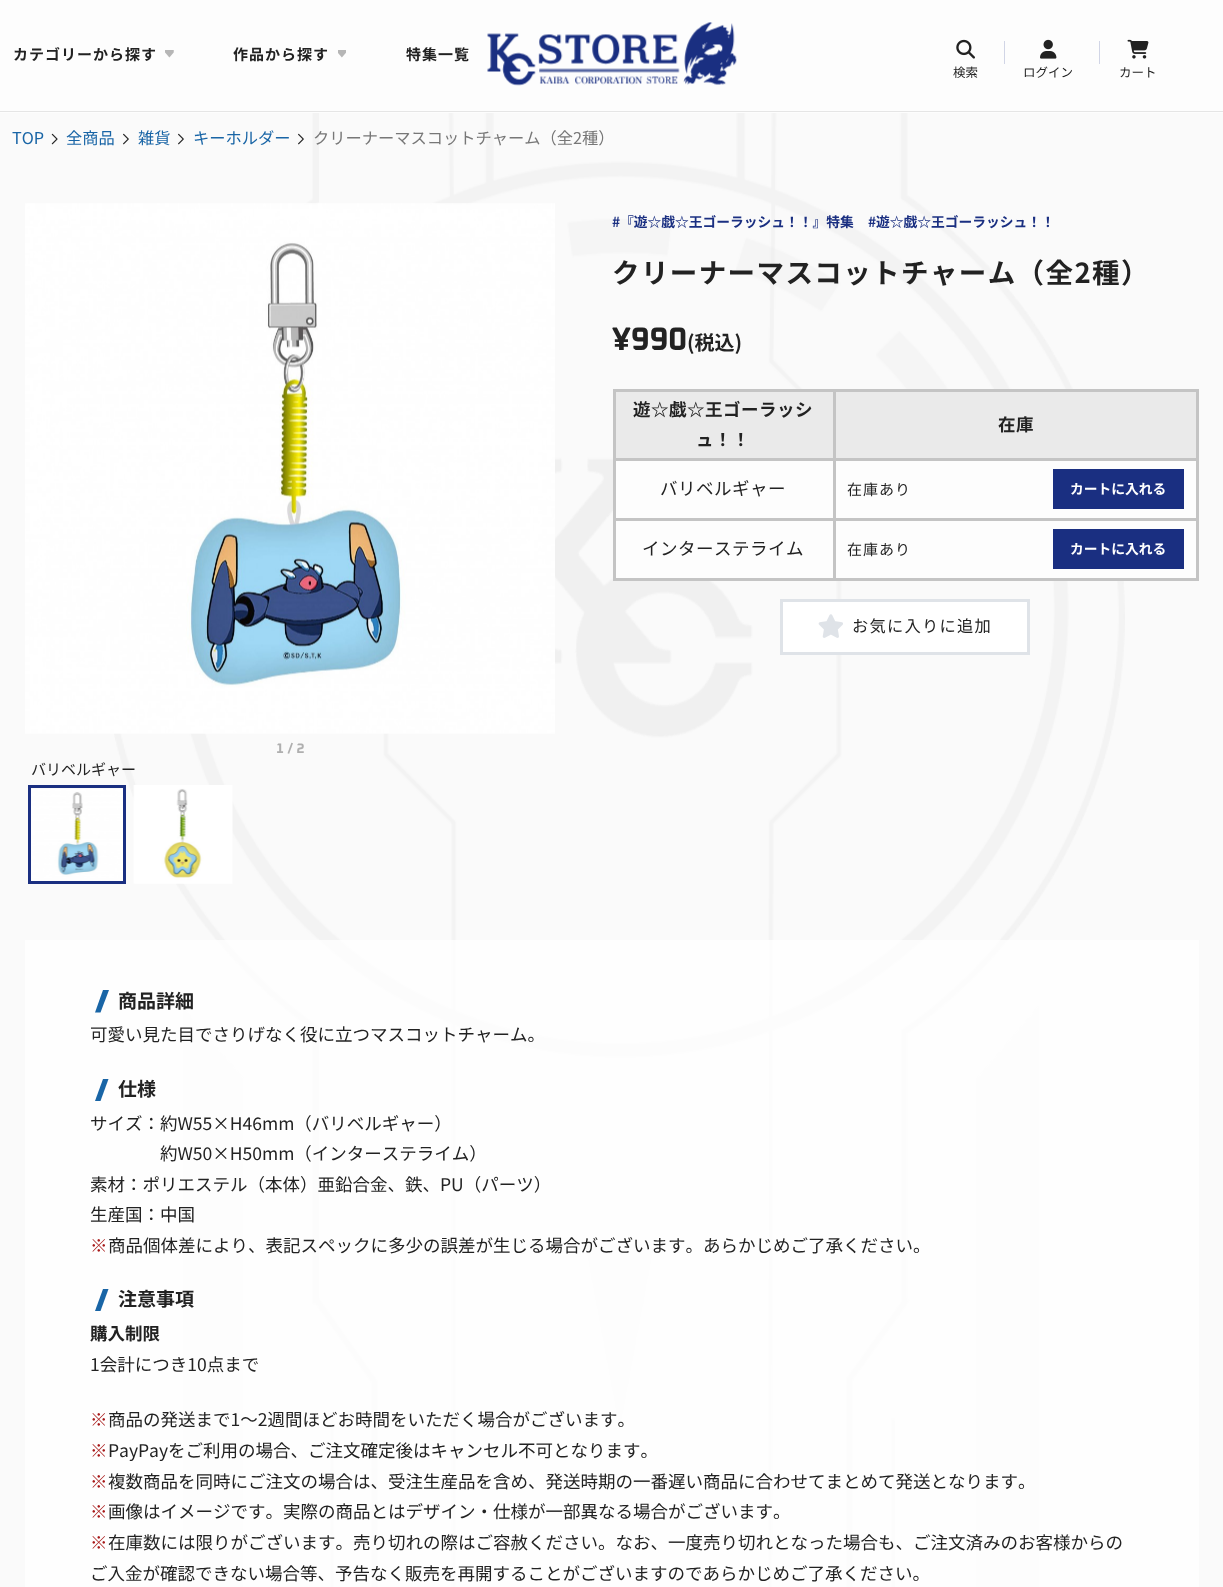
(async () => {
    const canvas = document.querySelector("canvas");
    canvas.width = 1223;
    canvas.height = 1587;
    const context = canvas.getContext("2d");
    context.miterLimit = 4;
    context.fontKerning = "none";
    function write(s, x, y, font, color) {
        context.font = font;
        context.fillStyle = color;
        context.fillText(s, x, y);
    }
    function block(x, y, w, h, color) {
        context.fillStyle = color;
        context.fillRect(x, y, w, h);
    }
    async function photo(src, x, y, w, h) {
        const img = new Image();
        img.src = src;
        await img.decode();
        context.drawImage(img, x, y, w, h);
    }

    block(0, 0, 1223, 1587, "rgb(250, 250, 250)");
    block(0, 0, 1223, 113, "rgb(253, 253, 253)");
    block(0, 111, 1223, 1, "rgb(229, 229, 229)");
    context.letterSpacing = "1px";
    write("カテゴリーから探す", 13, 60, "bold 15px Noto Sans JP", "rgb(34, 34, 34)");
    await photo("media/1.png", 165, 50, 9, 8);
    write("作品から探す", 233, 60, "bold 15px Noto Sans JP", "rgb(34, 34, 34)");
    await photo("media/2.png", 338, 50, 8, 8);
    write("特集一覧", 406, 60, "bold 15px Noto Sans JP", "rgb(34, 34, 34)");
    await photo("media/3.png", 487, 22, 250, 64);
    await photo("media/4.png", 956, 39, 19, 20);
    block(1004, 41, 1, 23, "rgb(209, 213, 230)");
    context.letterSpacing = "0px";
    write("検索", 953, 77, "12.5px Noto Sans JP", "rgb(34, 34, 34)");
    block(1099, 41, 1, 23, "rgb(209, 213, 230)");
    await photo("media/5.png", 1040, 39, 17, 20);
    write("ログイン", 1023, 77, "12.5px Noto Sans JP", "rgb(34, 34, 34)");
    await photo("media/6.png", 1127, 39, 22, 20);
    write("カート", 1119, 77, "12.5px Noto Sans JP", "rgb(34, 34, 34)");
    await photo("media/7.png", 114, 113, 1011, 1474);
    write("TOP", 12, 144, "16.25px Noto Sans JP", "rgb(25, 101, 166)");
    await photo("media/8.png", 51, 133, 7, 12);
    write("全商品", 66, 144, "16.25px Noto Sans JP", "rgb(25, 101, 166)");
    await photo("media/9.png", 123, 133, 6, 12);
    write("雑貨", 138, 144, "16.25px Noto Sans JP", "rgb(25, 101, 166)");
    await photo("media/9.png", 178, 133, 6, 12);
    write("キーホルダー", 193, 144, "16.25px Noto Sans JP", "rgb(25, 101, 166)");
    await photo("media/9.png", 298, 133, 6, 12);
    write("クリーナーマスコットチャーム（全2種）", 313, 144, "16.25px Noto Sans JP", "rgb(119, 119, 119)");
    write("#『遊☆戯☆王ゴーラッシュ！！』特集", 612, 227, "bold 13.75px Noto Sans JP", "rgb(26, 47, 129)");
    write("#遊☆戯☆王ゴーラッシュ！！", 868, 227, "bold 13.75px Noto Sans JP", "rgb(26, 47, 129)");
    context.letterSpacing = "1.4px";
    write("クリーナーマスコットチャーム（全2種）", 612, 283, "bold 27.5px Noto Sans JP", "rgb(34, 34, 34)");
    context.letterSpacing = "0px";
    write("¥990", 612, 350, "200 32.5px Oxanium", "rgb(34, 34, 34)");
    write("(税込)", 687, 350, "bold 20px Noto Sans JP", "rgb(34, 34, 34)");
    block(616, 392, 217, 66, "rgb(234, 234, 234)");
    block(833, 389, 366, 3, "rgb(196, 196, 196)");
    block(833, 458, 366, 3, "rgb(196, 196, 196)");
    block(833, 518, 366, 3, "rgb(196, 196, 196)");
    block(1196, 518, 3, 62, "rgb(196, 196, 196)");
    block(833, 578, 366, 3, "rgb(196, 196, 196)");
    block(833, 518, 3, 62, "rgb(196, 196, 196)");
    block(613, 518, 222, 3, "rgb(196, 196, 196)");
    block(833, 458, 3, 62, "rgb(196, 196, 196)");
    block(613, 458, 222, 3, "rgb(196, 196, 196)");
    block(833, 389, 3, 71, "rgb(196, 196, 196)");
    block(613, 389, 222, 3, "rgb(196, 196, 196)");
    block(613, 578, 222, 3, "rgb(196, 196, 196)");
    block(613, 518, 3, 62, "rgb(196, 196, 196)");
    block(613, 458, 3, 62, "rgb(196, 196, 196)");
    block(613, 389, 3, 71, "rgb(196, 196, 196)");
    context.letterSpacing = "0.5px";
    write("遊☆戯☆王ゴーラッシ", 633, 416, "bold 17.5px Noto Sans JP", "rgb(34, 34, 34)");
    write("ュ！！", 696, 446, "bold 17.5px Noto Sans JP", "rgb(34, 34, 34)");
    block(836, 392, 360, 66, "rgb(234, 234, 234)");
    block(1196, 458, 3, 62, "rgb(196, 196, 196)");
    block(1196, 389, 3, 71, "rgb(196, 196, 196)");
    write("在庫", 998, 431, "bold 17.5px Noto Sans JP", "rgb(34, 34, 34)");
    block(616, 461, 217, 57, "rgb(253, 253, 253)");
    write("バリベルギャー", 660, 495, "17.5px Noto Sans JP", "rgb(34, 34, 34)");
    block(836, 461, 360, 57, "rgb(253, 253, 253)");
    context.letterSpacing = "1px";
    write("在庫あり", 847, 495, "15px Noto Sans JP", "rgb(34, 34, 34)");
    block(1053, 469, 131, 40, "rgb(26, 47, 129)");
    context.letterSpacing = "0px";
    write("カートに入れる", 1070, 494, "bold 13.75px Noto Sans JP", "rgb(255, 255, 255)");
    block(616, 521, 217, 57, "rgb(253, 253, 253)");
    context.letterSpacing = "0.5px";
    write("インターステライム", 642, 555, "17.5px Noto Sans JP", "rgb(34, 34, 34)");
    block(836, 521, 360, 57, "rgb(253, 253, 253)");
    context.letterSpacing = "1px";
    write("在庫あり", 847, 555, "15px Noto Sans JP", "rgb(34, 34, 34)");
    block(1053, 529, 131, 40, "rgb(26, 47, 129)");
    context.letterSpacing = "0px";
    write("カートに入れる", 1070, 554, "bold 13.75px Noto Sans JP", "rgb(255, 255, 255)");
    context.beginPath();
    context.rect(781.5, 600.5, 247, 53);
    context.fill();
    context.strokeStyle = "rgb(223, 227, 232)";
    context.lineWidth = 3;
    context.stroke();
    await photo("media/10.png", 818, 614, 25, 24);
    context.letterSpacing = "1.25px";
    write("お気に入りに追加", 852, 632, "16.25px Noto Sans JP", "rgb(34, 34, 34)");
    context.letterSpacing = "0px";
    write("1 / 2", 276, 753, "200 13.75px Oxanium", "rgb(175, 175, 175)");
    await photo("media/11.png", 25, 203, 530, 531);
    write("バリベルギャー", 31, 775, "15px Noto Sans JP", "rgb(34, 34, 34)");
    await photo("media/12.png", 31, 789, 92, 92);
    context.strokeStyle = "rgb(26, 47, 129)";
    context.strokeRect(29.5, 786.5, 95, 96);
    await photo("media/13.png", 133, 785, 100, 99);
    block(25, 940, 1174, 647, "rgba(255, 255, 255, 0.76)");
    context.fillStyle = "rgb(25, 101, 166)";
    context.beginPath();
    context.moveTo(103, 990);
    context.lineTo(95, 1012.5);
    context.lineTo(100.5, 1012.5);
    context.lineTo(109, 990);
    context.closePath();
    context.fill();
    write("商品詳細", 118, 1008, "bold 19px Noto Sans JP", "rgb(34, 34, 34)");
    write("可愛い見た目でさりげなく役に立つマスコットチャーム。", 90, 1041, "17.5px Noto Sans JP", "rgb(34, 34, 34)");
    context.fillStyle = "rgb(25, 101, 166)";
    context.beginPath();
    context.moveTo(108.5, 1079);
    context.lineTo(100.5, 1101);
    context.lineTo(95, 1101);
    context.lineTo(103, 1079);
    context.closePath();
    context.fill();
    write("仕様", 118, 1096, "bold 19px Noto Sans JP", "rgb(34, 34, 34)");
    write("サイズ：約W55×H46mm（バリベルギャー）", 90, 1130, "17.5px Noto Sans JP", "rgb(34, 34, 34)");
    write("約W50×H50mm（インターステライム）", 160, 1160, "17.5px Noto Sans JP", "rgb(34, 34, 34)");
    write("素材：ポリエステル（本体）亜鉛合金、鉄、PU（パーツ）", 90, 1191, "17.5px Noto Sans JP", "rgb(34, 34, 34)");
    write("生産国：中国", 90, 1221, "17.5px Noto Sans JP", "rgb(34, 34, 34)");
    write("※", 90, 1252, "17.5px Noto Sans JP", "rgb(167, 24, 24)");
    write("商品個体差により、表記スペックに多少の誤差が生じる場合がございます。あらかじめご了承ください。", 108, 1252, "17.5px Noto Sans JP", "rgb(34, 34, 34)");
    context.fillStyle = "rgb(25, 101, 166)";
    context.beginPath();
    context.moveTo(95, 1311);
    context.lineTo(103, 1289);
    context.lineTo(108.5, 1289);
    context.lineTo(100.5, 1311);
    context.closePath();
    context.fill();
    write("注意事項", 118, 1306, "bold 19px Noto Sans JP", "rgb(34, 34, 34)");
    write("購入制限", 90, 1340, "bold 17.5px Noto Sans JP", "rgb(34, 34, 34)");
    write("1会計につき10点まで", 90, 1371, "17.5px Noto Sans JP", "rgb(34, 34, 34)");
    write("※", 90, 1426, "17.5px Noto Sans JP", "rgb(167, 24, 24)");
    write("商品の発送まで1～2週間ほどお時間をいただく場合がございます。", 108, 1426, "17.5px Noto Sans JP", "rgb(34, 34, 34)");
    write("※", 90, 1457, "17.5px Noto Sans JP", "rgb(167, 24, 24)");
    write("PayPayをご利用の場合、ご注文確定後はキャンセル不可となります。", 108, 1457, "17.5px Noto Sans JP", "rgb(34, 34, 34)");
    write("※", 90, 1488, "17.5px Noto Sans JP", "rgb(167, 24, 24)");
    write("複数商品を同時にご注文の場合は、受注生産品を含め、発送時期の一番遅い商品に合わせてまとめて発送となります。", 108, 1488, "17.5px Noto Sans JP", "rgb(34, 34, 34)");
    write("※", 90, 1518, "17.5px Noto Sans JP", "rgb(167, 24, 24)");
    write("画像はイメージです。実際の商品とはデザイン・仕様が一部異なる場合がございます。", 108, 1518, "17.5px Noto Sans JP", "rgb(34, 34, 34)");
    write("※", 90, 1549, "17.5px Noto Sans JP", "rgb(167, 24, 24)");
    write("在庫数には限りがございます。売り切れの際はご容赦ください。なお、一度売り切れとなった場合も、ご注文済みのお客様からの", 108, 1549, "17.5px Noto Sans JP", "rgb(34, 34, 34)");
    write("ご入金が確認できない場合等、予告なく販売を再開することがございますのであらかじめご了承ください。", 90, 1580, "17.5px Noto Sans JP", "rgb(34, 34, 34)");
})();
